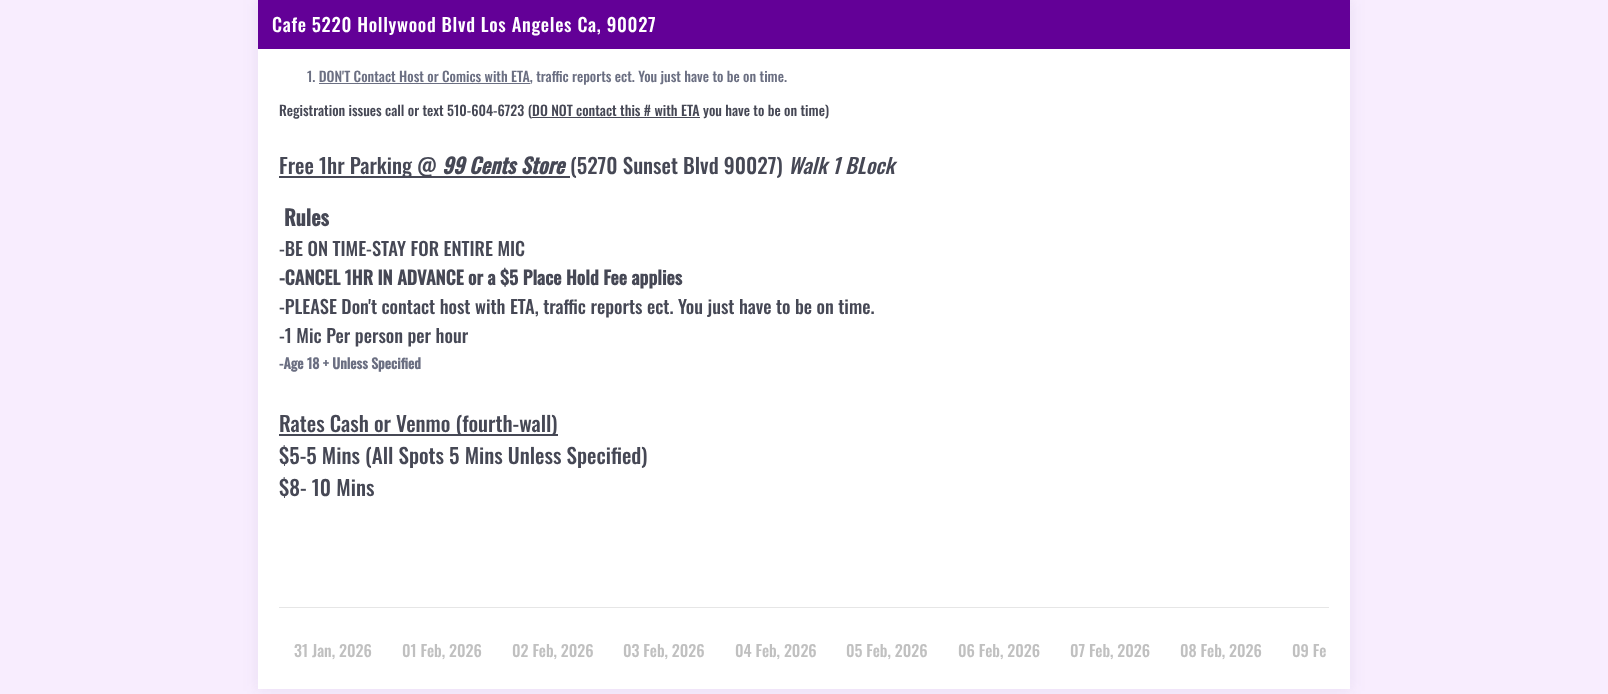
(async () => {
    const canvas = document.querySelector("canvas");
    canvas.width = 1608;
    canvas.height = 694;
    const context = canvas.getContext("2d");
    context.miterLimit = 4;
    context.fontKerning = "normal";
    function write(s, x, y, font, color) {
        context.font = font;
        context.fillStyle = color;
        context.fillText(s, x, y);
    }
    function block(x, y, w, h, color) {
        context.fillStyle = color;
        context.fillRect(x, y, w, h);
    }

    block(0, 0, 1608, 694, "rgb(248, 237, 254)");
    context.fillStyle = "rgba(62, 57, 107, 0.07)";
    context.filter = "blur(7.5px)";
    context.beginPath();
    context.rect(257, -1, 1094, 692);
    context.fill();
    context.filter = "none";
    block(258, 49, 1092, 640, "rgb(255, 255, 255)");
    block(258, 0, 1092, 49, "rgb(99, 0, 151)");
    context.letterSpacing = "0.7px";
    write("Cafe 5220 Hollywood Blvd Los Angeles Ca, 90027", 272, 32, "500 18.5px Oswald", "rgb(255, 255, 255)");
    context.letterSpacing = "0px";
    write("1. DON'T Contact Host or Comics with ETA, traffic reports ect. You just have to be on time.", 307, 82, "500 14px Oswald", "rgb(107, 111, 130)");
    block(319, 83, 211, 1, "rgb(107, 111, 130)");
    write("Registration issues call or text 510-604-6723 (DO NOT contact this # with ETA you have to be on time)", 279, 116, "500 14px Oswald", "rgb(70, 72, 85)");
    block(532, 117, 168, 1, "rgb(70, 72, 85)");
    block(279, 176, 291, 2, "rgb(70, 72, 85)");
    write("Free 1hr Parking @", 279, 174, "500 21.1px Oswald", "rgb(70, 72, 85)");
    write("99 Cents Store", 442, 174, "italic bold 21.1px Oswald", "rgb(70, 72, 85)");
    write("(5270 Sunset Blvd 90027)", 570, 174, "500 21.1px Oswald", "rgb(70, 72, 85)");
    write("Walk 1 BLock", 788, 174, "italic 500 21.1px Oswald", "rgb(70, 72, 85)");
    write("Rules", 284, 226, "bold 21.1px Oswald", "rgb(70, 72, 85)");
    write("-BE ON TIME-STAY FOR ENTIRE MIC", 279, 256, "500 18.5px Oswald", "rgb(70, 72, 85)");
    write("-CANCEL 1HR IN ADVANCE or a $5 Place Hold Fee applies", 279, 285, "bold 18.5px Oswald", "rgb(70, 72, 85)");
    write("-PLEASE Don't contact host with ETA, traffic reports ect. You just have to be on time.", 279, 314, "500 18.5px Oswald", "rgb(70, 72, 85)");
    write("-1 Mic Per person per hour", 279, 343, "500 18.5px Oswald", "rgb(70, 72, 85)");
    write("-Age 18 + Unless Specified", 279, 369, "bold 14px Oswald", "rgb(107, 111, 130)");
    block(279, 434, 279, 2, "rgb(70, 72, 85)");
    write("Rates Cash or Venmo (fourth-wall)", 279, 432, "500 21.1px Oswald", "rgb(70, 72, 85)");
    write("$5-5 Mins (All Spots 5 Mins Unless Specified)", 279, 464, "500 21.1px Oswald", "rgb(70, 72, 85)");
    write("$8- 10 Mins", 279, 496, "500 21.1px Oswald", "rgb(70, 72, 85)");
    block(279, 607, 1050, 1, "rgb(230, 230, 230)");
    write("31 Jan, 2026", 294, 657, "500 16px Oswald", "rgb(192, 192, 192)");
    write("01 Feb, 2026", 402, 657, "500 16px Oswald", "rgb(192, 192, 192)");
    write("02 Feb, 2026", 512, 657, "500 16px Oswald", "rgb(192, 192, 192)");
    write("03 Feb, 2026", 623, 657, "500 16px Oswald", "rgb(192, 192, 192)");
    write("04 Feb, 2026", 735, 657, "500 16px Oswald", "rgb(192, 192, 192)");
    write("05 Feb, 2026", 846, 657, "500 16px Oswald", "rgb(192, 192, 192)");
    write("06 Feb, 2026", 958, 657, "500 16px Oswald", "rgb(192, 192, 192)");
    write("07 Feb, 2026", 1070, 657, "500 16px Oswald", "rgb(192, 192, 192)");
    write("08 Feb, 2026", 1180, 657, "500 16px Oswald", "rgb(192, 192, 192)");
    write("09 Fe", 1292, 657, "500 16px Oswald", "rgb(192, 192, 192)");
})();
